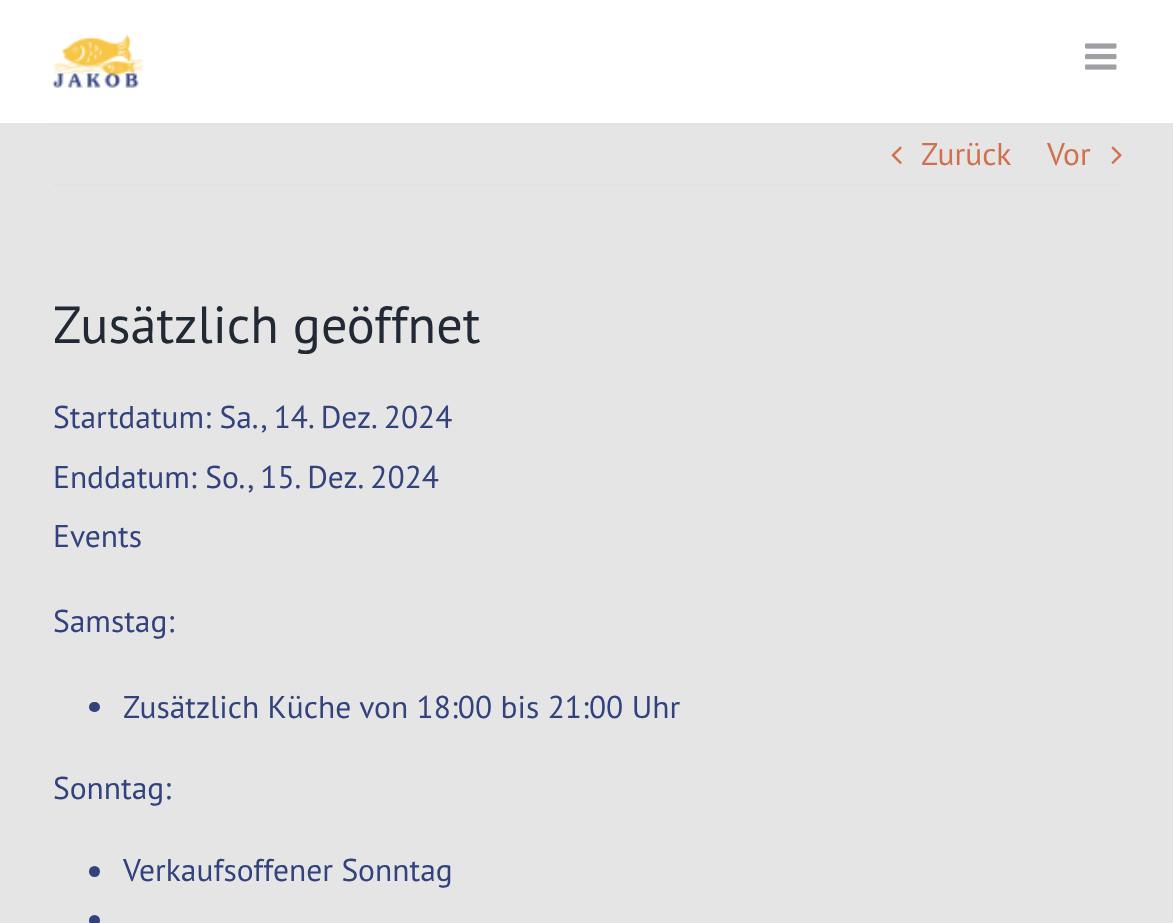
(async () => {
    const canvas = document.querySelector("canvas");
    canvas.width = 1173;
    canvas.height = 923;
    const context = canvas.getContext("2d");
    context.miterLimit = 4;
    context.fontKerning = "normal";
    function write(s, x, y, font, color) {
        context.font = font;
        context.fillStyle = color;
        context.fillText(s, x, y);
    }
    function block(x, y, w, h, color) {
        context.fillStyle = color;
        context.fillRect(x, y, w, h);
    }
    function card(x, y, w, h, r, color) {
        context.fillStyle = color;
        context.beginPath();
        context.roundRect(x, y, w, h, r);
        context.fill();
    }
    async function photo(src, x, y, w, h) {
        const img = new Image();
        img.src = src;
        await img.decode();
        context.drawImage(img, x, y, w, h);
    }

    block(0, 0, 1173, 923, "rgb(230, 229, 230)");
    block(0, 0, 1173, 123, "rgb(255, 255, 255)");
    await photo("media/1.png", 52, 35, 92, 53);
    await photo("media/2.png", 1085, 43, 32, 27);
    block(53, 123, 1069, 2, "rgb(226, 226, 226)");
    block(53, 184, 1069, 2, "rgb(226, 226, 226)");
    await photo("media/3.png", 891, 146, 11, 18);
    write("Zurück", 921, 165, "31.5px PT Sans", "rgb(209, 112, 77)");
    write("Vor", 1047, 165, "31.5px PT Sans", "rgb(209, 112, 77)");
    await photo("media/4.png", 1111, 146, 11, 18);
    write("Zusätzlich geöffnet", 53, 343, "52.25px PT Sans", "rgb(33, 41, 52)");
    write("Startdatum: Sa., 14. Dez. 2024", 53, 428, "31.5px PT Sans", "rgb(50, 66, 124)");
    write("Enddatum: So., 15. Dez. 2024", 53, 488, "31.5px PT Sans", "rgb(50, 66, 124)");
    write("Events", 53, 547, "31.5px PT Sans", "rgb(50, 66, 124)");
    write("Samstag:", 53, 632, "31.5px PT Sans", "rgb(50, 66, 124)");
    card(89, 702, 11, 10, 5, "rgb(50, 66, 124)");
    write("Zusätzlich Küche von 18:00 bis 21:00 Uhr", 123, 718, "31.5px PT Sans", "rgb(50, 66, 124)");
    write("Sonntag:", 53, 799, "31.5px PT Sans", "rgb(50, 66, 124)");
    context.beginPath();
    context.arc(94.5, 871.5, 5.5, 0, Math.PI * 2);
    context.fill();
    write("Verkaufsoffener Sonntag", 123, 881, "31.5px PT Sans", "rgb(50, 66, 124)");
    context.beginPath();
    context.arc(94.5, 920.5, 5.5, 0, Math.PI * 2);
    context.fill();
})();
